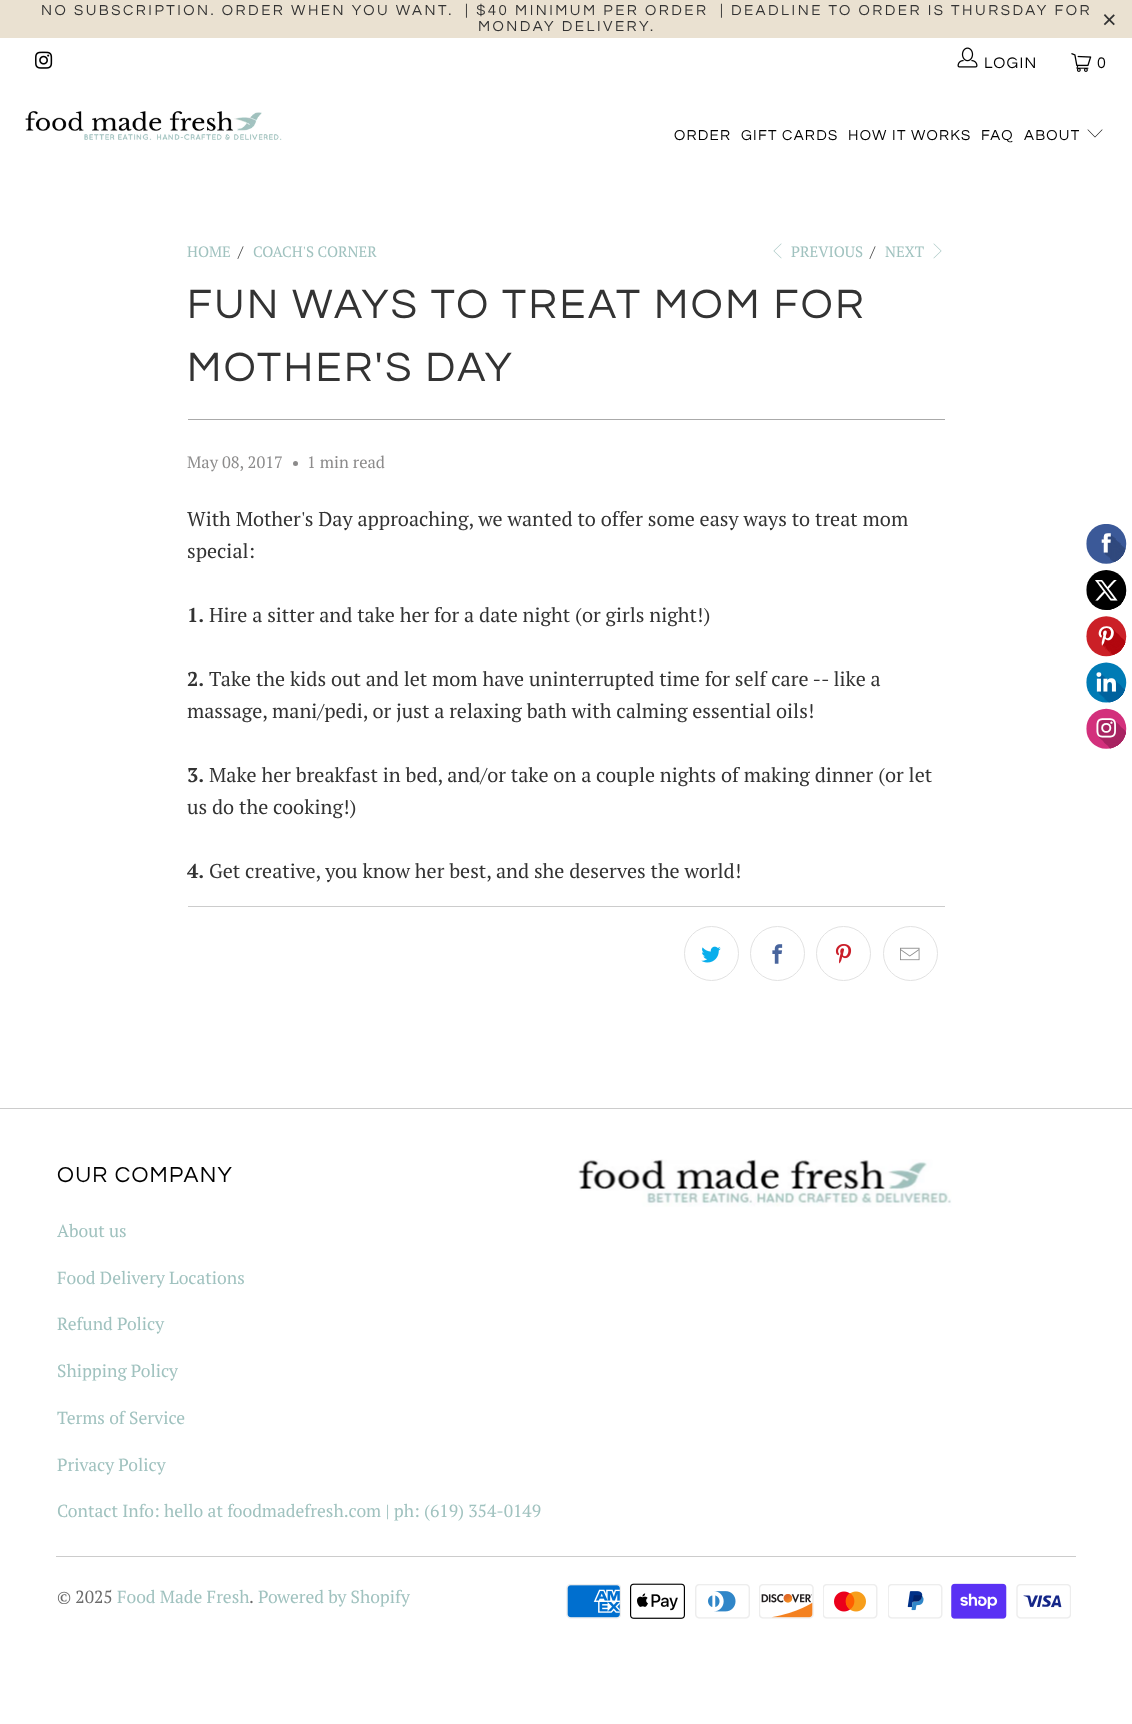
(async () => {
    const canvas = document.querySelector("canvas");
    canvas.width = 1132;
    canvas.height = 1724;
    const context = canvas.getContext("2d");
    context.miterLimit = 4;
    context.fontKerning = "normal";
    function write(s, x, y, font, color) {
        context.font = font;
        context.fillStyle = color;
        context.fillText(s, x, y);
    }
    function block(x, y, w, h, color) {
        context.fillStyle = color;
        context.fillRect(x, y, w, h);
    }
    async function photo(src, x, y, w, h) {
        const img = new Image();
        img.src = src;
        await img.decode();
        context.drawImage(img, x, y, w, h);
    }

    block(0, 0, 1132, 1724, "rgb(255, 255, 255)");
    block(0, 0, 1132, 38, "rgb(234, 225, 209)");
    context.letterSpacing = "2.5px";
    write("NO SUBSCRIPTION. ORDER WHEN YOU WANT.  | $40 MINIMUM PER ORDER  | DEADLINE TO ORDER IS THURSDAY FOR", 41, 15, "15px Questrial", "rgb(51, 51, 51)");
    write("MONDAY DELIVERY.", 478, 31, "15px Questrial", "rgb(51, 51, 51)");
    write("×", 1102, 28, "25px Liberation Sans", "rgb(51, 51, 51)");
    await photo("media/1.png", 35, 51, 18, 18);
    await photo("media/2.png", 957, 47, 21, 21);
    context.letterSpacing = "1.25px";
    write("LOGIN", 984, 68, "16px Questrial", "rgb(0, 0, 0)");
    await photo("media/3.png", 1071, 53, 21, 19);
    write("0", 1097, 68, "16px Questrial", "rgb(0, 0, 0)");
    await photo("media/4.png", 25, 111, 257, 29);
    write("ORDER", 674, 140, "15px Questrial", "rgb(0, 0, 0)");
    write("GIFT CARDS", 741, 140, "15px Questrial", "rgb(0, 0, 0)");
    write("HOW IT WORKS", 848, 140, "15px Questrial", "rgb(0, 0, 0)");
    write("FAQ", 981, 140, "15px Questrial", "rgb(0, 0, 0)");
    write("ABOUT", 1024, 140, "15px Questrial", "rgb(0, 0, 0)");
    await photo("media/5.png", 1087, 129, 16, 9);
    context.letterSpacing = "0px";
    write("HOME", 187, 257, "15px PT Serif", "rgb(160, 194, 191)");
    write("/", 238, 257, "15px PT Serif", "rgb(51, 51, 51)");
    write("COACH'S CORNER", 253, 257, "15px PT Serif", "rgb(160, 194, 191)");
    await photo("media/6.png", 773, 243, 9, 16);
    write("PREVIOUS", 791, 257, "15px PT Serif", "rgb(160, 194, 191)");
    write("/", 870, 257, "15px PT Serif", "rgb(51, 51, 51)");
    write("NEXT", 885, 257, "15px PT Serif", "rgb(160, 194, 191)");
    await photo("media/7.png", 933, 243, 9, 16);
    context.letterSpacing = "2.5px";
    write("FUN WAYS TO TREAT MOM FOR", 187, 318, "42.5px Questrial", "rgb(51, 51, 51)");
    write("MOTHER'S DAY", 187, 381, "42.5px Questrial", "rgb(51, 51, 51)");
    block(188, 419, 757, 1, "rgb(170, 170, 170)");
    context.letterSpacing = "0px";
    write("May 08, 2017", 187, 468, "16.5px PT Serif", "rgb(140, 139, 139)");
    context.beginPath();
    context.arc(295.5, 463.5, 2.5, 0, Math.PI * 2);
    context.fill();
    write("1 min read", 307, 468, "16.5px PT Serif", "rgb(140, 139, 139)");
    write("With Mother's Day approaching, we wanted to offer some easy ways to treat mom", 187, 526, "20px PT Serif", "rgb(51, 51, 51)");
    write("special:", 187, 558, "20px PT Serif", "rgb(51, 51, 51)");
    write("1.", 187, 622, "bold 20px PT Serif", "rgb(51, 51, 51)");
    write("Hire a sitter and take her for a date night (or girls night!)", 209, 622, "20px PT Serif", "rgb(51, 51, 51)");
    write("2.", 187, 686, "bold 20px PT Serif", "rgb(51, 51, 51)");
    write("Take the kids out and let mom have uninterrupted time for self care -- like a", 209, 686, "20px PT Serif", "rgb(51, 51, 51)");
    write("massage, mani/pedi, or just a relaxing bath with calming essential oils!", 187, 718, "20px PT Serif", "rgb(51, 51, 51)");
    write("3.", 187, 782, "bold 20px PT Serif", "rgb(51, 51, 51)");
    write("Make her breakfast in bed, and/or take on a couple nights of making dinner (or let", 209, 782, "20px PT Serif", "rgb(51, 51, 51)");
    write("us do the cooking!)", 187, 814, "20px PT Serif", "rgb(51, 51, 51)");
    write("4.", 187, 878, "bold 20px PT Serif", "rgb(51, 51, 51)");
    write("Get creative, you know her best, and she deserves the world!", 209, 878, "20px PT Serif", "rgb(51, 51, 51)");
    block(188, 906, 757, 1, "rgb(204, 204, 204)");
    context.beginPath();
    context.arc(711.5, 953.5, 27, 0, Math.PI * 2);
    context.strokeStyle = "rgb(226, 226, 226)";
    context.stroke();
    await photo("media/8.png", 701, 946, 20, 17);
    context.beginPath();
    context.arc(777.5, 953.5, 27, 0, Math.PI * 2);
    context.stroke();
    await photo("media/9.png", 772, 944, 11, 20);
    context.beginPath();
    context.arc(843.5, 953.5, 27, 0, Math.PI * 2);
    context.stroke();
    await photo("media/10.png", 835, 944, 17, 20);
    context.beginPath();
    context.arc(910.5, 953.5, 27, 0, Math.PI * 2);
    context.stroke();
    await photo("media/11.png", 900, 947, 20, 14);
    await photo("media/12.png", 1086, 524, 41, 225);
    block(0, 1108, 1132, 1, "rgb(204, 204, 204)");
    context.letterSpacing = "1.25px";
    write("OUR COMPANY", 57, 1182, "22.5px Questrial", "rgb(0, 0, 0)");
    context.letterSpacing = "0px";
    write("About us", 57, 1237, "17.5px PT Serif", "rgb(160, 194, 191)");
    write("Food Delivery Locations", 57, 1284, "17.5px PT Serif", "rgb(160, 194, 191)");
    write("Refund Policy", 57, 1330, "17.5px PT Serif", "rgb(160, 194, 191)");
    write("Shipping Policy", 57, 1377, "17.5px PT Serif", "rgb(160, 194, 191)");
    write("Terms of Service", 57, 1424, "17.5px PT Serif", "rgb(160, 194, 191)");
    write("Privacy Policy", 57, 1471, "17.5px PT Serif", "rgb(160, 194, 191)");
    write("Contact Info: hello at foodmadefresh.com | ph: (619) 354-0149", 57, 1517, "17.5px PT Serif", "rgb(160, 194, 191)");
    await photo("media/13.png", 578, 1159, 374, 48);
    block(56, 1556, 1020, 1, "rgb(204, 204, 204)");
    write("© 2025", 57, 1603, "17.5px PT Serif", "rgb(107, 107, 107)");
    write("Food Made Fresh", 117, 1603, "17.5px PT Serif", "rgb(160, 194, 191)");
    write(".", 249, 1603, "17.5px PT Serif", "rgb(107, 107, 107)");
    write("Powered by Shopify", 258, 1603, "17.5px PT Serif", "rgb(160, 194, 191)");
    await photo("media/14.png", 566, 1584, 55, 35);
    await photo("media/15.png", 630, 1583, 55, 36);
    await photo("media/16.png", 695, 1584, 55, 35);
    await photo("media/17.png", 759, 1584, 55, 35);
    await photo("media/18.png", 823, 1584, 55, 35);
    await photo("media/19.png", 888, 1584, 55, 35);
    await photo("media/20.png", 951, 1583, 56, 36);
    await photo("media/21.png", 1016, 1584, 55, 35);
})();
